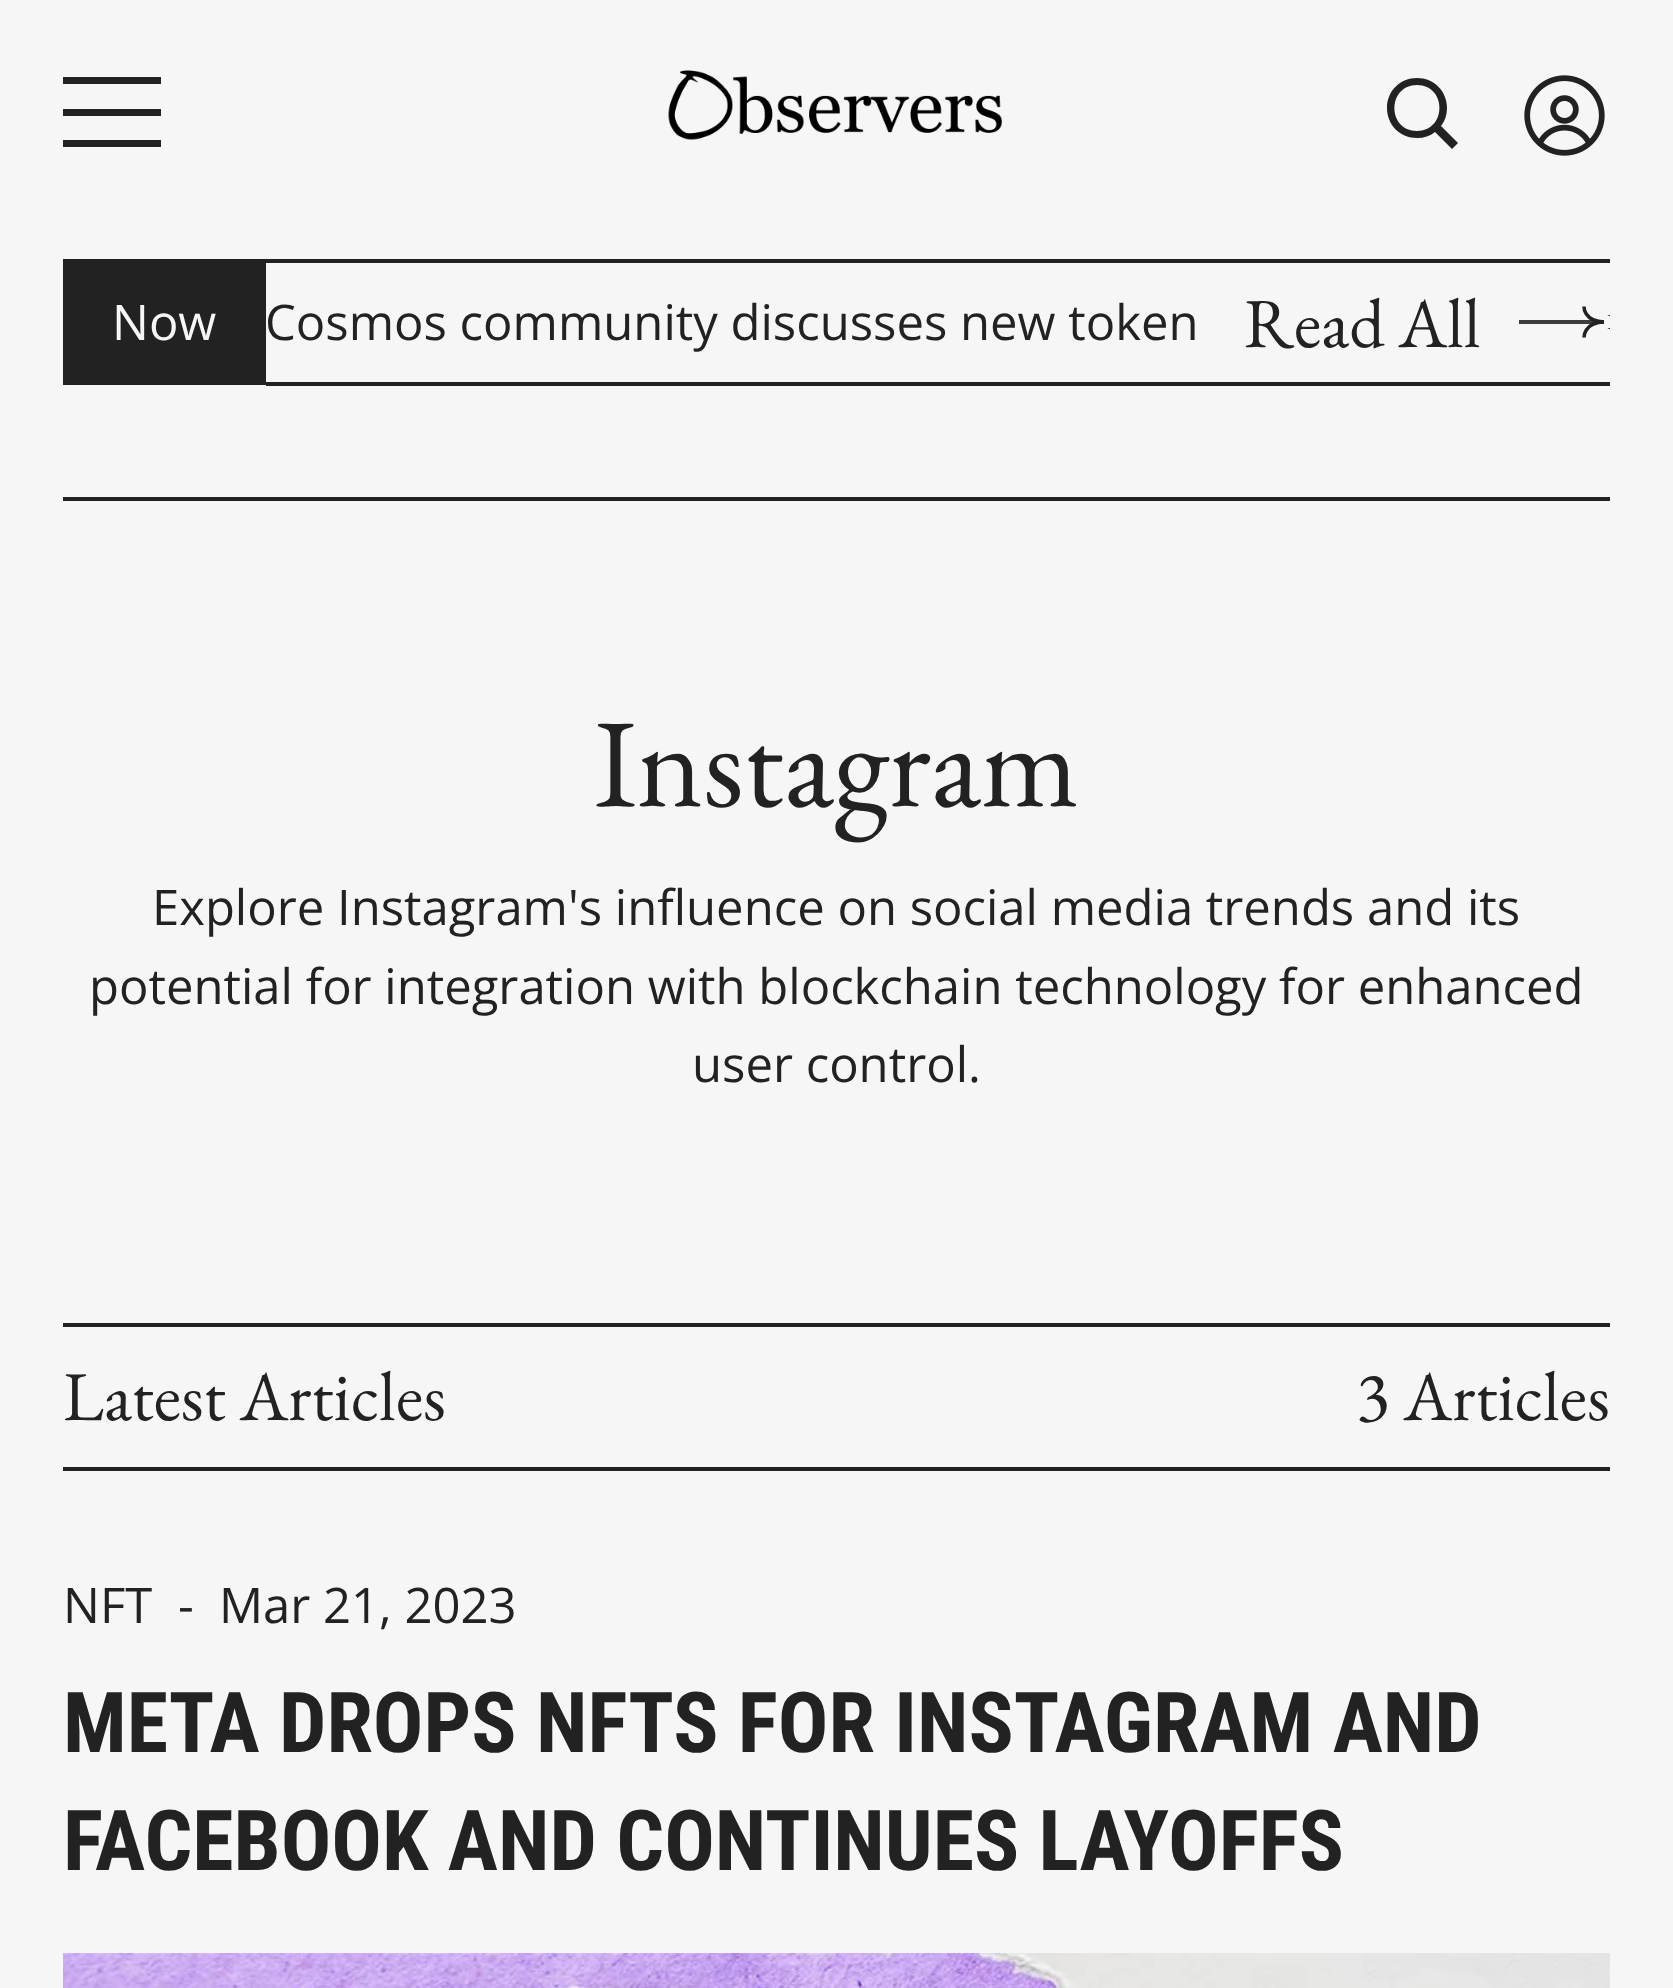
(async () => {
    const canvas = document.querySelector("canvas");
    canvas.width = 1673;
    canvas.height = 1988;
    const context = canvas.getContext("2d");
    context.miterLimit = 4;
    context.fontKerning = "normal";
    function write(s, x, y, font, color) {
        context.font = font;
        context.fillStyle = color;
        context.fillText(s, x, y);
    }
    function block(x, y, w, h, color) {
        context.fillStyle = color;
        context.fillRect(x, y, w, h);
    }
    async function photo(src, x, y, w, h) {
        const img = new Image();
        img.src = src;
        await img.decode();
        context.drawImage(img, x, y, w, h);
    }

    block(0, 0, 1673, 1988, "rgb(246, 246, 246)");
    block(63, 77, 98, 7, "rgb(34, 34, 34)");
    block(63, 109, 98, 7, "rgb(34, 34, 34)");
    block(63, 140, 98, 7, "rgb(34, 34, 34)");
    await photo("media/1.png", 668, 70, 334, 70);
    context.beginPath();
    context.moveTo(1417, 138);
    context.bezierCurveTo(1424, 138, 1430, 136, 1435, 132);
    context.lineTo(1452, 149);
    context.lineTo(1458, 143);
    context.lineTo(1441, 126);
    context.bezierCurveTo(1445, 121, 1447, 115, 1447, 108);
    context.bezierCurveTo(1447, 91, 1434, 78, 1417, 78);
    context.bezierCurveTo(1400, 78, 1387, 91, 1387, 108);
    context.bezierCurveTo(1387, 125, 1400, 138, 1417, 138);
    context.closePath();
    context.moveTo(1417, 85);
    context.bezierCurveTo(1447, 85, 1447, 131, 1417, 131);
    context.bezierCurveTo(1387, 131, 1387, 85, 1417, 85);
    context.closePath();
    context.fill();
    await photo("media/2.png", 1524, 75, 81, 81);
    block(63, 259, 203, 126, "rgb(34, 34, 34)");
    write("Now", 112, 340, "49px Open Sans", "rgb(246, 246, 246)");
    block(266, 259, 1344, 4, "rgb(34, 34, 34)");
    block(266, 382, 1344, 4, "rgb(34, 34, 34)");
    write("Cosmos community discusses new token", 265, 340, "49px Open Sans", "rgb(34, 34, 34)");
    context.beginPath();
    context.roundRect(1607, 315, 3, 14, [7, 0, 0, 7]);
    context.fill();
    block(1607, 316, 3, 12, "rgb(246, 246, 246)");
    write("Read All", 1244, 347, "70px EB Garamond", "rgb(34, 34, 34)");
    block(1519, 320, 85, 4, "rgb(61, 61, 61)");
    context.beginPath();
    context.moveTo(1584, 337.5);
    context.bezierCurveTo(1584, 337.5, 1583.5, 322.5, 1604, 322);
    context.moveTo(1584, 306.5);
    context.bezierCurveTo(1584, 306.5, 1583.5, 321.5, 1604, 322);
    context.strokeStyle = "rgb(34, 34, 34)";
    context.lineWidth = 3.5;
    context.stroke();
    block(63, 497, 1547, 4, "rgb(34, 34, 34)");
    write("Instagram", 594, 806, "126px EB Garamond", "rgb(34, 34, 34)");
    write("Explore Instagram's influence on social media trends and its", 152, 925, "49px Open Sans", "rgb(34, 34, 34)");
    write("potential for integration with blockchain technology for enhanced", 89, 1004, "49px Open Sans", "rgb(34, 34, 34)");
    write("user control.", 692, 1082, "49px Open Sans", "rgb(34, 34, 34)");
    block(63, 1323, 1547, 4, "rgb(34, 34, 34)");
    block(63, 1467, 1547, 4, "rgb(34, 34, 34)");
    write("Latest Articles", 63, 1420, "70px EB Garamond", "rgb(34, 34, 34)");
    write("3 Articles", 1356, 1420, "70px EB Garamond", "rgb(34, 34, 34)");
    write("NFT", 63, 1623, "49px Open Sans", "rgb(34, 34, 34)");
    write("-", 178, 1623, "49px Open Sans", "rgb(34, 34, 34)");
    write("Mar 21, 2023", 219, 1623, "49px Open Sans", "rgb(34, 34, 34)");
    write("META DROPS NFTS FOR INSTAGRAM AND", 63, 1752, "bold 84px Roboto Condensed", "rgb(34, 34, 34)");
    write("FACEBOOK AND CONTINUES LAYOFFS", 63, 1870, "bold 84px Roboto Condensed", "rgb(34, 34, 34)");
    await photo("media/3.png", 63, 1953, 1547, 35);
})();
